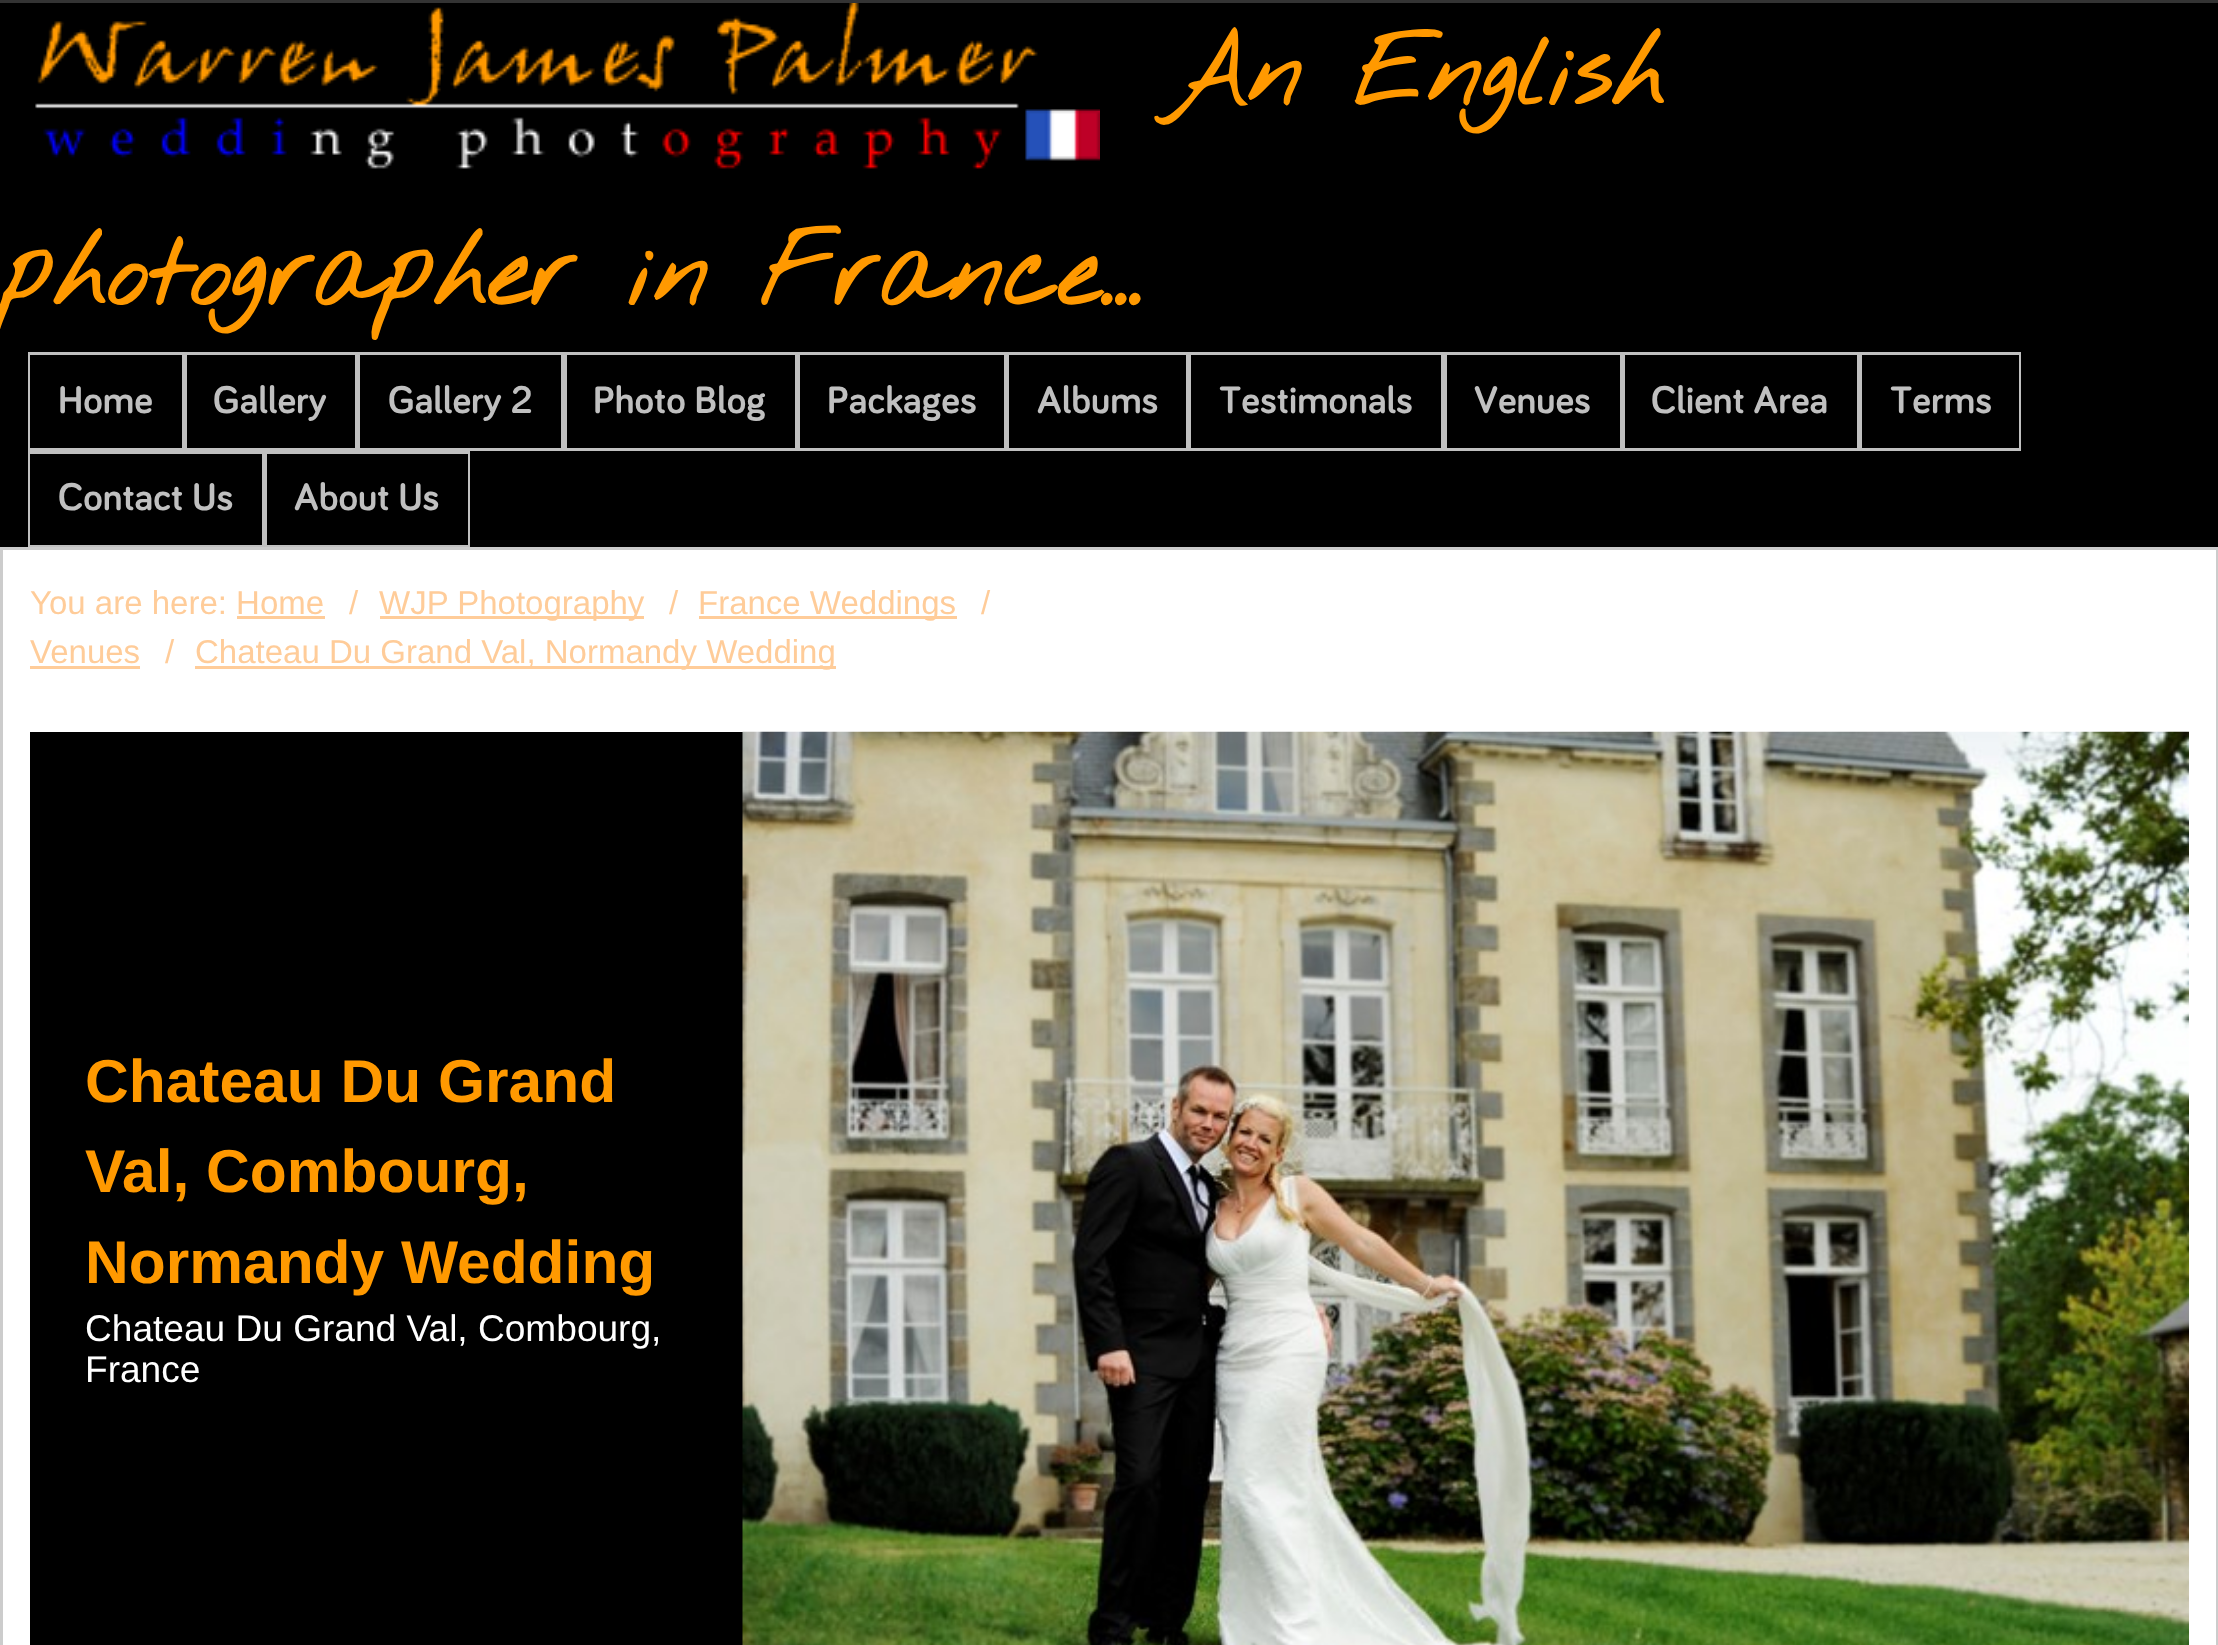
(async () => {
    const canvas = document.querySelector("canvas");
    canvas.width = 2218;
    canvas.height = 1645;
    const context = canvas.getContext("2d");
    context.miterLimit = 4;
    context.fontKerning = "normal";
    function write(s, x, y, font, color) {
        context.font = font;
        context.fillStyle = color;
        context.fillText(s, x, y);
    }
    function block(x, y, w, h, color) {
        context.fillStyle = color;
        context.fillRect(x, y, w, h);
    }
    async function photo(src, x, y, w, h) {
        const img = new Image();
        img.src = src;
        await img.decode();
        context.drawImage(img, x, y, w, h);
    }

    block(0, 0, 2218, 1645, "rgb(0, 0, 0)");
    block(0, 0, 2218, 3, "rgb(51, 51, 51)");
    await photo("media/1.png", 35, 3, 1065, 166);
    write("An English", 1164, 105, "bold 99px Nothing You Could Do", "rgb(255, 153, 0)");
    write("photographer in France...", 0, 305, "bold 99px Nothing You Could Do", "rgb(255, 153, 0)");
    context.strokeStyle = "rgb(192, 192, 192)";
    context.lineWidth = 3;
    context.strokeRect(29.5, 353.5, 153, 96);
    block(30, 355, 152, 93, "rgb(0, 0, 0)");
    write("Home", 58, 413, "bold 39.5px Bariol", "rgb(192, 192, 192)");
    context.strokeRect(185.5, 353.5, 171, 96);
    write("Gallery", 213, 413, "bold 39.5px Bariol", "rgb(192, 192, 192)");
    context.strokeRect(359.5, 353.5, 203, 96);
    block(360, 355, 1, 93, "rgb(0, 0, 0)");
    write("Gallery 2", 388, 413, "bold 39.5px Bariol", "rgb(192, 192, 192)");
    context.strokeRect(565.5, 353.5, 231, 96);
    write("Photo Blog", 593, 413, "bold 39.5px Bariol", "rgb(192, 192, 192)");
    context.strokeRect(799.5, 353.5, 206, 96);
    block(800, 355, 1, 93, "rgb(0, 0, 0)");
    write("Packages", 827, 413, "bold 39.5px Bariol", "rgb(192, 192, 192)");
    context.strokeRect(1008.5, 353.5, 178, 96);
    block(1009, 355, 1, 93, "rgb(0, 0, 0)");
    write("Albums", 1037, 413, "bold 39.5px Bariol", "rgb(192, 192, 192)");
    block(1185, 355, 1, 93, "rgb(0, 0, 0)");
    context.strokeRect(1189.5, 353.5, 253, 96);
    write("Testimonals", 1219, 413, "bold 39.5px Bariol", "rgb(192, 192, 192)");
    context.strokeRect(1445.5, 353.5, 176, 96);
    write("Venues", 1474, 413, "bold 39.5px Bariol", "rgb(192, 192, 192)");
    context.strokeRect(1624.5, 353.5, 233, 96);
    block(1625, 355, 1, 93, "rgb(0, 0, 0)");
    write("Client Area", 1651, 413, "bold 39.5px Bariol", "rgb(192, 192, 192)");
    block(1856, 355, 1, 93, "rgb(0, 0, 0)");
    context.strokeRect(1860.5, 353.5, 159, 96);
    block(2018, 355, 1, 93, "rgb(0, 0, 0)");
    write("Terms", 1890, 413, "bold 39.5px Bariol", "rgb(192, 192, 192)");
    context.strokeRect(29.5, 452.5, 233, 93);
    block(30, 454, 232, 91, "rgb(0, 0, 0)");
    write("Contact Us", 58, 510, "bold 39.5px Bariol", "rgb(192, 192, 192)");
    context.strokeRect(265.5, 452.5, 203, 93);
    block(267, 454, 201, 91, "rgb(0, 0, 0)");
    write("About Us", 294, 510, "bold 39.5px Bariol", "rgb(192, 192, 192)");
    context.fillStyle = "rgb(255, 255, 255)";
    context.beginPath();
    context.rect(1.5, 548.5, 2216, 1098);
    context.fill();
    context.strokeStyle = "rgb(204, 204, 204)";
    context.stroke();
    write("You are here: Home", 30, 614, "33px Liberation Sans", "rgb(255, 204, 153)");
    write("/", 349, 614, "33px Liberation Sans", "rgb(255, 204, 153)");
    block(237, 616, 88, 3, "rgb(255, 204, 153)");
    block(380, 616, 264, 3, "rgb(255, 204, 153)");
    write("WJP Photography", 379, 614, "33px Liberation Sans", "rgb(255, 204, 153)");
    write("/", 669, 614, "33px Liberation Sans", "rgb(255, 204, 153)");
    block(699, 616, 258, 3, "rgb(255, 204, 153)");
    write("France Weddings", 698, 614, "33px Liberation Sans", "rgb(255, 204, 153)");
    write("/", 981, 614, "33px Liberation Sans", "rgb(255, 204, 153)");
    write("Venues", 30, 663, "33px Liberation Sans", "rgb(255, 204, 153)");
    block(30, 666, 110, 3, "rgb(255, 204, 153)");
    write("/", 165, 663, "33px Liberation Sans", "rgb(255, 204, 153)");
    block(195, 666, 641, 3, "rgb(255, 204, 153)");
    write("Chateau Du Grand Val, Normandy Wedding", 195, 663, "33px Liberation Sans", "rgb(255, 204, 153)");
    block(30, 732, 713, 913, "rgb(0, 0, 0)");
    write("Chateau Du Grand", 85, 1102, "bold 60.5px Liberation Sans", "rgb(255, 153, 0)");
    write("Val, Combourg,", 85, 1192, "bold 60.5px Liberation Sans", "rgb(255, 153, 0)");
    write("Normandy Wedding", 85, 1283, "bold 60.5px Liberation Sans", "rgb(255, 153, 0)");
    write("Chateau Du Grand Val, Combourg,", 85, 1341, "37.1px Liberation Sans", "rgb(255, 255, 255)");
    write("France", 85, 1382, "37.1px Liberation Sans", "rgb(255, 255, 255)");
    await photo("media/2.png", 742, 731, 1447, 914);
})();
